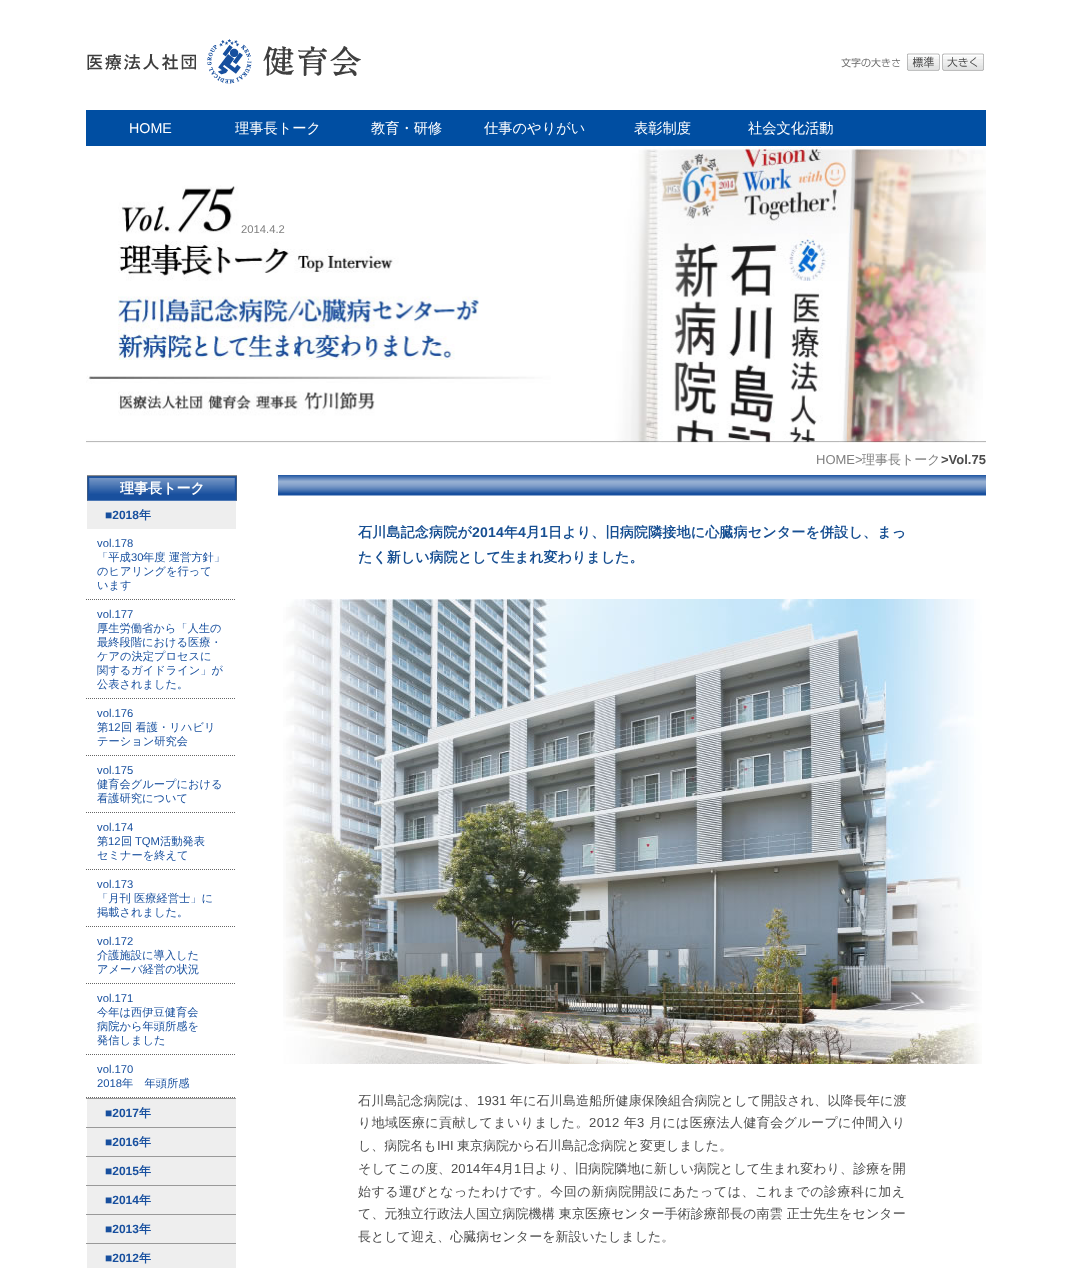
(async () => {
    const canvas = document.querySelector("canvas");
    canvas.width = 1072;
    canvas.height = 1268;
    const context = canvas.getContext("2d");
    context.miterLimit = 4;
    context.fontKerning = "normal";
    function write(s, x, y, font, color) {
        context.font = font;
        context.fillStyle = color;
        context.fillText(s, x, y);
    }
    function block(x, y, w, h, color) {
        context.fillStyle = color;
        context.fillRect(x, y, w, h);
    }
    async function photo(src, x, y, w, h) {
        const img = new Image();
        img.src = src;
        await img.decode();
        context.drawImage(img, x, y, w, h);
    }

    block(0, 0, 1072, 1268, "rgb(255, 255, 255)");
    await photo("media/1.png", 87, 39, 274, 45);
    await photo("media/2.png", 841, 58, 60, 10);
    await photo("media/3.png", 907, 53, 33, 18);
    await photo("media/4.png", 942, 53, 42, 18);
    block(86, 110, 900, 36, "rgb(0, 78, 162)");
    write("HOME", 129, 133, "14.25px Liberation Sans", "rgb(255, 255, 255)");
    write("理事長トーク", 235, 133, "500 14.25px WenQuanYi Zen Hei", "rgb(255, 255, 255)");
    write("教育・研修", 371, 133, "500 14.25px WenQuanYi Zen Hei", "rgb(255, 255, 255)");
    write("仕事のやりがい", 484, 133, "500 14.25px WenQuanYi Zen Hei", "rgb(255, 255, 255)");
    write("表彰制度", 634, 133, "500 14.25px WenQuanYi Zen Hei", "rgb(255, 255, 255)");
    write("社会文化活動", 748, 133, "500 14.25px WenQuanYi Zen Hei", "rgb(255, 255, 255)");
    await photo("media/5.png", 86, 146, 900, 297);
    write("2014.4.2", 241, 233, "11.25px Liberation Sans", "rgb(128, 128, 128)");
    write("HOME", 816, 464, "13px Liberation Sans", "rgb(128, 128, 128)");
    write(">", 855, 464, "13px Liberation Sans", "rgb(128, 128, 128)");
    write("理事長トーク", 862, 464, "500 13px WenQuanYi Zen Hei", "rgb(128, 128, 128)");
    write(">Vol.75", 941, 464, "bold 13px Liberation Sans", "rgb(77, 77, 77)");
    await photo("media/6.png", 87, 475, 150, 26);
    write("理事長トーク", 120, 493, "bold 14.05px WenQuanYi Zen Hei", "rgb(255, 255, 255)");
    block(86, 1098, 150, 1, "rgb(153, 153, 153)");
    block(87, 501, 149, 28, "rgb(238, 238, 238)");
    write("■2018", 105, 519, "bold 12px Liberation Sans", "rgb(23, 79, 158)");
    write("年", 139, 519, "bold 12px WenQuanYi Zen Hei", "rgb(23, 79, 158)");
    context.beginPath();
    context.moveTo(86, 599.5);
    context.lineTo(236, 599.5);
    context.strokeStyle = "rgb(102, 102, 102)";
    context.setLineDash([1, 1]);
    context.stroke();
    write("vol.178", 97, 547, "11.25px Liberation Sans", "rgb(23, 79, 158)");
    write("「平成", 97, 561, "500 11.25px WenQuanYi Zen Hei", "rgb(23, 79, 158)");
    write("30", 131, 561, "11.25px Liberation Sans", "rgb(23, 79, 158)");
    write("年度 運営方針」", 143, 561, "500 11.25px WenQuanYi Zen Hei", "rgb(23, 79, 158)");
    write("のヒアリングを行って", 97, 575, "500 11.25px WenQuanYi Zen Hei", "rgb(23, 79, 158)");
    write("います", 97, 589, "500 11.25px WenQuanYi Zen Hei", "rgb(23, 79, 158)");
    context.beginPath();
    context.moveTo(86, 698.5);
    context.lineTo(236, 698.5);
    context.stroke();
    write("vol.177", 97, 618, "11.25px Liberation Sans", "rgb(23, 79, 158)");
    write("厚生労働省から「人生の", 97, 632, "500 11.25px WenQuanYi Zen Hei", "rgb(23, 79, 158)");
    write("最終段階における医療・", 97, 646, "500 11.25px WenQuanYi Zen Hei", "rgb(23, 79, 158)");
    write("ケアの決定プロセスに", 97, 660, "500 11.25px WenQuanYi Zen Hei", "rgb(23, 79, 158)");
    write("関するガイドライン」が", 97, 674, "500 11.25px WenQuanYi Zen Hei", "rgb(23, 79, 158)");
    write("公表されました。", 97, 688, "500 11.25px WenQuanYi Zen Hei", "rgb(23, 79, 158)");
    context.beginPath();
    context.moveTo(86, 755.5);
    context.lineTo(236, 755.5);
    context.stroke();
    write("vol.176", 97, 717, "11.25px Liberation Sans", "rgb(23, 79, 158)");
    write("第", 97, 731, "500 11.25px WenQuanYi Zen Hei", "rgb(23, 79, 158)");
    write("12", 108, 731, "11.25px Liberation Sans", "rgb(23, 79, 158)");
    write("回 看護・リハビリ", 121, 731, "500 11.25px WenQuanYi Zen Hei", "rgb(23, 79, 158)");
    write("テーション研究会", 97, 745, "500 11.25px WenQuanYi Zen Hei", "rgb(23, 79, 158)");
    context.beginPath();
    context.moveTo(86, 812.5);
    context.lineTo(236, 812.5);
    context.stroke();
    write("vol.175", 97, 774, "11.25px Liberation Sans", "rgb(23, 79, 158)");
    write("健育会グループにおける", 97, 788, "500 11.25px WenQuanYi Zen Hei", "rgb(23, 79, 158)");
    write("看護研究について", 97, 802, "500 11.25px WenQuanYi Zen Hei", "rgb(23, 79, 158)");
    context.beginPath();
    context.moveTo(86, 869.5);
    context.lineTo(236, 869.5);
    context.stroke();
    write("vol.174", 97, 831, "11.25px Liberation Sans", "rgb(23, 79, 158)");
    write("第", 97, 845, "500 11.25px WenQuanYi Zen Hei", "rgb(23, 79, 158)");
    write("12", 108, 845, "11.25px Liberation Sans", "rgb(23, 79, 158)");
    write("回", 121, 845, "500 11.25px WenQuanYi Zen Hei", "rgb(23, 79, 158)");
    write("TQM", 135, 845, "11.25px Liberation Sans", "rgb(23, 79, 158)");
    write("活動発表", 160, 845, "500 11.25px WenQuanYi Zen Hei", "rgb(23, 79, 158)");
    write("セミナーを終えて", 97, 859, "500 11.25px WenQuanYi Zen Hei", "rgb(23, 79, 158)");
    context.beginPath();
    context.moveTo(86, 926.5);
    context.lineTo(236, 926.5);
    context.stroke();
    write("vol.173", 97, 888, "11.25px Liberation Sans", "rgb(23, 79, 158)");
    write("「月刊 医療経営士」に", 97, 902, "500 11.25px WenQuanYi Zen Hei", "rgb(23, 79, 158)");
    write("掲載されました。", 97, 916, "500 11.25px WenQuanYi Zen Hei", "rgb(23, 79, 158)");
    context.beginPath();
    context.moveTo(86, 983.5);
    context.lineTo(236, 983.5);
    context.stroke();
    write("vol.172", 97, 945, "11.25px Liberation Sans", "rgb(23, 79, 158)");
    write("介護施設に導入した", 97, 959, "500 11.25px WenQuanYi Zen Hei", "rgb(23, 79, 158)");
    write("アメーバ経営の状況", 97, 973, "500 11.25px WenQuanYi Zen Hei", "rgb(23, 79, 158)");
    context.beginPath();
    context.moveTo(86, 1054.5);
    context.lineTo(236, 1054.5);
    context.stroke();
    write("vol.171", 97, 1002, "11.25px Liberation Sans", "rgb(23, 79, 158)");
    write("今年は西伊豆健育会", 97, 1016, "500 11.25px WenQuanYi Zen Hei", "rgb(23, 79, 158)");
    write("病院から年頭所感を", 97, 1030, "500 11.25px WenQuanYi Zen Hei", "rgb(23, 79, 158)");
    write("発信しました", 97, 1044, "500 11.25px WenQuanYi Zen Hei", "rgb(23, 79, 158)");
    context.beginPath();
    context.moveTo(86, 1097.5);
    context.lineTo(236, 1097.5);
    context.stroke();
    write("vol.170", 97, 1073, "11.25px Liberation Sans", "rgb(23, 79, 158)");
    write("2018", 97, 1087, "11.25px Liberation Sans", "rgb(23, 79, 158)");
    write("年　年頭所感", 122, 1087, "500 11.25px WenQuanYi Zen Hei", "rgb(23, 79, 158)");
    block(86, 1127, 150, 1, "rgb(153, 153, 153)");
    block(87, 1099, 149, 28, "rgb(238, 238, 238)");
    write("■2017", 105, 1117, "bold 12px Liberation Sans", "rgb(23, 79, 158)");
    write("年", 139, 1117, "bold 12px WenQuanYi Zen Hei", "rgb(23, 79, 158)");
    block(86, 1156, 150, 1, "rgb(153, 153, 153)");
    block(87, 1128, 149, 28, "rgb(238, 238, 238)");
    write("■2016", 105, 1146, "bold 12px Liberation Sans", "rgb(23, 79, 158)");
    write("年", 139, 1146, "bold 12px WenQuanYi Zen Hei", "rgb(23, 79, 158)");
    block(86, 1185, 150, 1, "rgb(153, 153, 153)");
    block(87, 1157, 149, 28, "rgb(238, 238, 238)");
    write("■2015", 105, 1175, "bold 12px Liberation Sans", "rgb(23, 79, 158)");
    write("年", 139, 1175, "bold 12px WenQuanYi Zen Hei", "rgb(23, 79, 158)");
    block(86, 1214, 150, 1, "rgb(153, 153, 153)");
    block(87, 1186, 149, 28, "rgb(238, 238, 238)");
    write("■2014", 105, 1204, "bold 12px Liberation Sans", "rgb(23, 79, 158)");
    write("年", 139, 1204, "bold 12px WenQuanYi Zen Hei", "rgb(23, 79, 158)");
    block(86, 1243, 150, 1, "rgb(153, 153, 153)");
    block(87, 1215, 149, 28, "rgb(238, 238, 238)");
    write("■2013", 105, 1233, "bold 12px Liberation Sans", "rgb(23, 79, 158)");
    write("年", 139, 1233, "bold 12px WenQuanYi Zen Hei", "rgb(23, 79, 158)");
    block(87, 1244, 149, 24, "rgb(238, 238, 238)");
    write("■2012", 105, 1262, "bold 12px Liberation Sans", "rgb(23, 79, 158)");
    write("年", 139, 1262, "bold 12px WenQuanYi Zen Hei", "rgb(23, 79, 158)");
    await photo("media/7.png", 278, 475, 708, 21);
    context.letterSpacing = "0.15px";
    write("石川島記念病院が", 358, 537, "bold 14.05px WenQuanYi Zen Hei", "rgb(23, 79, 146)");
    write("2014", 472, 537, "bold 14.05px Liberation Sans", "rgb(23, 79, 146)");
    write("年", 504, 537, "bold 14.05px WenQuanYi Zen Hei", "rgb(23, 79, 146)");
    write("4", 518, 537, "bold 14.05px Liberation Sans", "rgb(23, 79, 146)");
    write("月", 526, 537, "bold 14.05px WenQuanYi Zen Hei", "rgb(23, 79, 146)");
    write("1", 540, 537, "bold 14.05px Liberation Sans", "rgb(23, 79, 146)");
    write("日より、旧病院隣接地に心臓病センターを併設し、まっ", 548, 537, "bold 14.05px WenQuanYi Zen Hei", "rgb(23, 79, 146)");
    context.letterSpacing = "0px";
    write("たく新しい病院として生まれ変わりました。", 358, 562, "bold 14.05px WenQuanYi Zen Hei", "rgb(23, 79, 146)");
    await photo("media/8.png", 283, 599, 699, 465);
    context.letterSpacing = "0.15px";
    write("石川島記念病院は、", 358, 1105, "500 13px WenQuanYi Zen Hei", "rgb(77, 77, 77)");
    write("1931", 477, 1105, "13px Liberation Sans", "rgb(77, 77, 77)");
    write("年に石川島造船所健康保険組合病院として開設され、以降長年に渡", 510, 1105, "500 13px WenQuanYi Zen Hei", "rgb(77, 77, 77)");
    context.letterSpacing = "0.4px";
    write("り地域医療に貢献してまいりました。", 358, 1127, "500 13px WenQuanYi Zen Hei", "rgb(77, 77, 77)");
    write("2012", 589, 1127, "13px Liberation Sans", "rgb(77, 77, 77)");
    write("年", 624, 1127, "500 13px WenQuanYi Zen Hei", "rgb(77, 77, 77)");
    write("3", 637, 1127, "13px Liberation Sans", "rgb(77, 77, 77)");
    write("月には医療法人健育会グループに仲間入り", 649, 1127, "500 13px WenQuanYi Zen Hei", "rgb(77, 77, 77)");
    context.letterSpacing = "0px";
    write("し、病院名も", 358, 1150, "500 13px WenQuanYi Zen Hei", "rgb(77, 77, 77)");
    write("IHI", 437, 1150, "13px Liberation Sans", "rgb(77, 77, 77)");
    write("東京病院から石川島記念病院と変更しました。", 457, 1150, "500 13px WenQuanYi Zen Hei", "rgb(77, 77, 77)");
    context.letterSpacing = "0.1px";
    write("そしてこの度、", 358, 1173, "500 13px WenQuanYi Zen Hei", "rgb(77, 77, 77)");
    write("2014", 451, 1173, "13px Liberation Sans", "rgb(77, 77, 77)");
    write("年", 481, 1173, "500 13px WenQuanYi Zen Hei", "rgb(77, 77, 77)");
    write("4", 494, 1173, "13px Liberation Sans", "rgb(77, 77, 77)");
    write("月", 501, 1173, "500 13px WenQuanYi Zen Hei", "rgb(77, 77, 77)");
    write("1", 514, 1173, "13px Liberation Sans", "rgb(77, 77, 77)");
    write("日より、旧病院隣地に新しい病院として生まれ変わり、診療を開", 522, 1173, "500 13px WenQuanYi Zen Hei", "rgb(77, 77, 77)");
    context.letterSpacing = "0.5px";
    write("始する運びとなったわけです。今回の新病院開設にあたっては、これまでの診療科に加え", 358, 1196, "500 13px WenQuanYi Zen Hei", "rgb(77, 77, 77)");
    context.letterSpacing = "0.1px";
    write("て、元独立行政法人国立病院機構 東京医療センター手術診療部長の南雲 正士先生をセンター", 358, 1218, "500 13px WenQuanYi Zen Hei", "rgb(77, 77, 77)");
    context.letterSpacing = "0px";
    write("長として迎え、心臓病センターを新設いたしました。", 358, 1241, "500 13px WenQuanYi Zen Hei", "rgb(77, 77, 77)");
})();
